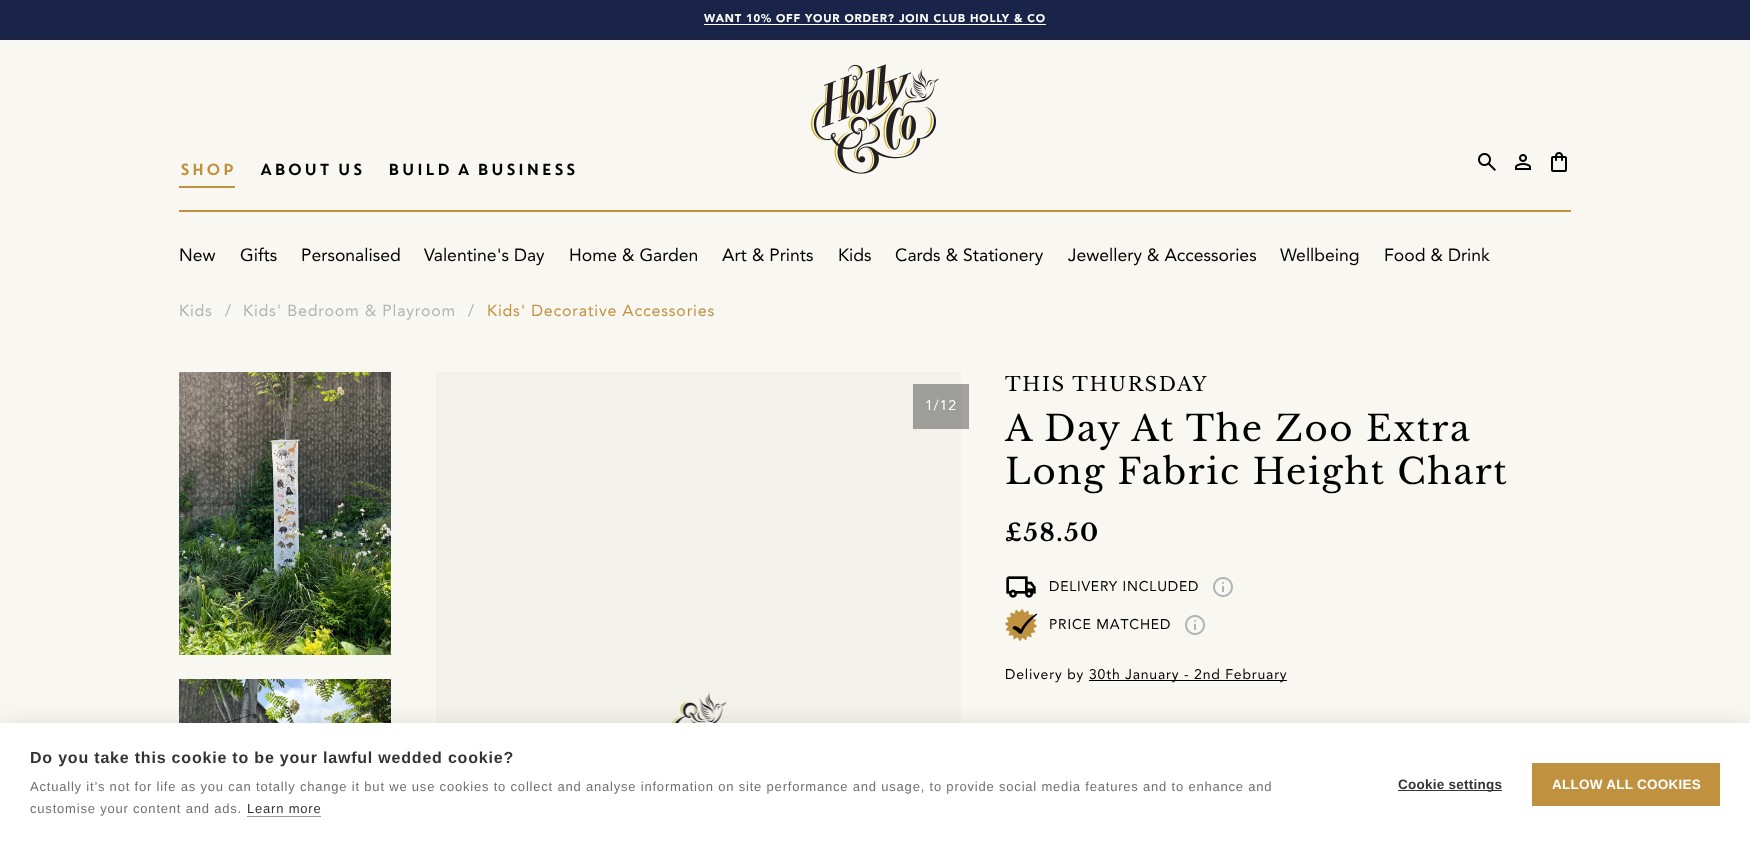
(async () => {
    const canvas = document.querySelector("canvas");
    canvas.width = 1750;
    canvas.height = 845;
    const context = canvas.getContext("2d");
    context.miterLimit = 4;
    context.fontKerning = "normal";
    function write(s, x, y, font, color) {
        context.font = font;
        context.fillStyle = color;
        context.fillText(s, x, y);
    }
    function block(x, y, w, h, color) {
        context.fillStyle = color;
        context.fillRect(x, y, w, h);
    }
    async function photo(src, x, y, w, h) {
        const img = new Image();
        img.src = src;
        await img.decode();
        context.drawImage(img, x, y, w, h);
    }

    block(0, 0, 1750, 845, "rgb(249, 247, 241)");
    block(961, 384, 8, 45, "rgb(162, 161, 157)");
    block(0, 0, 1750, 40, "rgb(26, 36, 72)");
    context.letterSpacing = "0.8px";
    write("WANT 10% OFF YOUR ORDER? JOIN CLUB HOLLY & CO", 704, 22, "900 11.2px Avenir", "rgb(255, 255, 255)");
    block(704, 24, 342, 1, "rgb(255, 255, 255)");
    await photo("media/1.png", 811, 64, 128, 110);
    await photo("media/2.png", 1478, 153, 18, 18);
    await photo("media/3.png", 1515, 154, 16, 16);
    await photo("media/4.png", 1551, 152, 16, 20);
    block(179, 186, 56, 2, "rgb(192, 146, 64)");
    context.letterSpacing = "0px";
    write("SHOP", 179, 175, "16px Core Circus", "rgb(192, 146, 64)");
    write("ABOUT US", 259, 175, "16px Core Circus", "rgb(0, 0, 0)");
    write("BUILD A BUSINESS", 387, 175, "16px Core Circus", "rgb(0, 0, 0)");
    block(179, 210, 1392, 2, "rgb(192, 146, 64)");
    write("New", 179, 261, "17.6px Avenir", "rgb(0, 0, 0)");
    write("Gifts", 240, 261, "17.6px Avenir", "rgb(0, 0, 0)");
    write("Personalised", 301, 261, "17.6px Avenir", "rgb(0, 0, 0)");
    write("Valentine's Day", 424, 261, "17.6px Avenir", "rgb(0, 0, 0)");
    write("Home & Garden", 569, 261, "17.6px Avenir", "rgb(0, 0, 0)");
    write("Art & Prints", 722, 261, "17.6px Avenir", "rgb(0, 0, 0)");
    write("Kids", 838, 261, "17.6px Avenir", "rgb(0, 0, 0)");
    write("Cards & Stationery", 895, 261, "17.6px Avenir", "rgb(0, 0, 0)");
    write("Jewellery & Accessories", 1068, 261, "17.6px Avenir", "rgb(0, 0, 0)");
    write("Wellbeing", 1280, 261, "17.6px Avenir", "rgb(0, 0, 0)");
    write("Food & Drink", 1384, 261, "17.6px Avenir", "rgb(0, 0, 0)");
    context.letterSpacing = "0.8px";
    write("Kids", 179, 316, "16px Avenir", "rgb(172, 181, 183)");
    write("/", 225, 316, "16px Avenir", "rgb(172, 181, 183)");
    write("Kids' Bedroom & Playroom", 243, 316, "16px Avenir", "rgb(172, 181, 183)");
    write("/", 468, 316, "16px Avenir", "rgb(172, 181, 183)");
    write("Kids' Decorative Accessories", 487, 316, "16px Avenir", "rgb(192, 146, 64)");
    await photo("media/5.png", 179, 372, 212, 283);
    await photo("media/6.png", 179, 679, 212, 44);
    block(436, 372, 525, 351, "rgb(242, 242, 235)");
    block(913, 384, 48, 45, "rgb(157, 157, 153)");
    await photo("media/7.png", 671, 692, 56, 31);
    write("1/12", 925, 410, "14px Avenir", "rgb(255, 255, 255)");
    context.letterSpacing = "1.6px";
    write("THIS THURSDAY", 1005, 391, "19.5px Libre Baskerville", "rgb(0, 0, 0)");
    write("A Day At The Zoo Extra", 1005, 441, "35.5px Libre Baskerville", "rgb(0, 0, 0)");
    write("Long Fabric Height Chart", 1005, 484, "35.5px Libre Baskerville", "rgb(0, 0, 0)");
    write("£58.50", 1005, 541, "bold 24px Libre Baskerville", "rgb(0, 0, 0)");
    await photo("media/8.png", 1006, 576, 30, 22);
    context.letterSpacing = "0.8px";
    write("DELIVERY INCLUDED", 1049, 591, "14px Avenir", "rgb(0, 0, 0)");
    await photo("media/9.png", 1213, 577, 20, 20);
    await photo("media/10.png", 1005, 609, 32, 32);
    write("PRICE MATCHED", 1049, 629, "14px Avenir", "rgb(0, 0, 0)");
    await photo("media/9.png", 1185, 615, 20, 20);
    write("Delivery by", 1005, 679, "14px Avenir", "rgb(0, 0, 0)");
    block(1089, 680, 198, 1, "rgb(0, 0, 0)");
    write("30th January - 2nd February", 1089, 679, "14px Avenir", "rgb(0, 0, 0)");
    context.fillStyle = "rgba(0, 0, 0, 0.1)";
    context.filter = "blur(10px)";
    context.beginPath();
    context.rect(0, 723, 1750, 122);
    context.fill();
    context.filter = "none";
    block(0, 723, 1750, 122, "rgb(255, 255, 255)");
    write("Do you take this cookie to be your lawful wedded cookie?", 30, 763, "bold 16px Liberation Sans", "rgb(51, 51, 51)");
    write("Actually it’s not for life as you can totally change it but we use cookies to collect and analyse information on site performance and usage, to provide social media features and to enhance and", 30, 791, "13px Liberation Sans", "rgb(112, 112, 112)");
    write("customise your content and ads.", 30, 813, "13px Liberation Sans", "rgb(112, 112, 112)");
    write("Learn more", 247, 813, "13px Liberation Sans", "rgb(51, 51, 51)");
    block(247, 816, 74, 1, "rgb(153, 153, 153)");
    block(1398, 790, 104, 1, "rgb(51, 51, 51)");
    context.letterSpacing = "0.25px";
    write("Cookie settings", 1398, 789, "bold 13.5px Liberation Sans", "rgb(51, 51, 51)");
    block(1532, 763, 188, 43, "rgb(192, 146, 64)");
    write("ALLOW ALL COOKIES", 1552, 789, "bold 13.5px Liberation Sans", "rgb(255, 255, 255)");
})();
